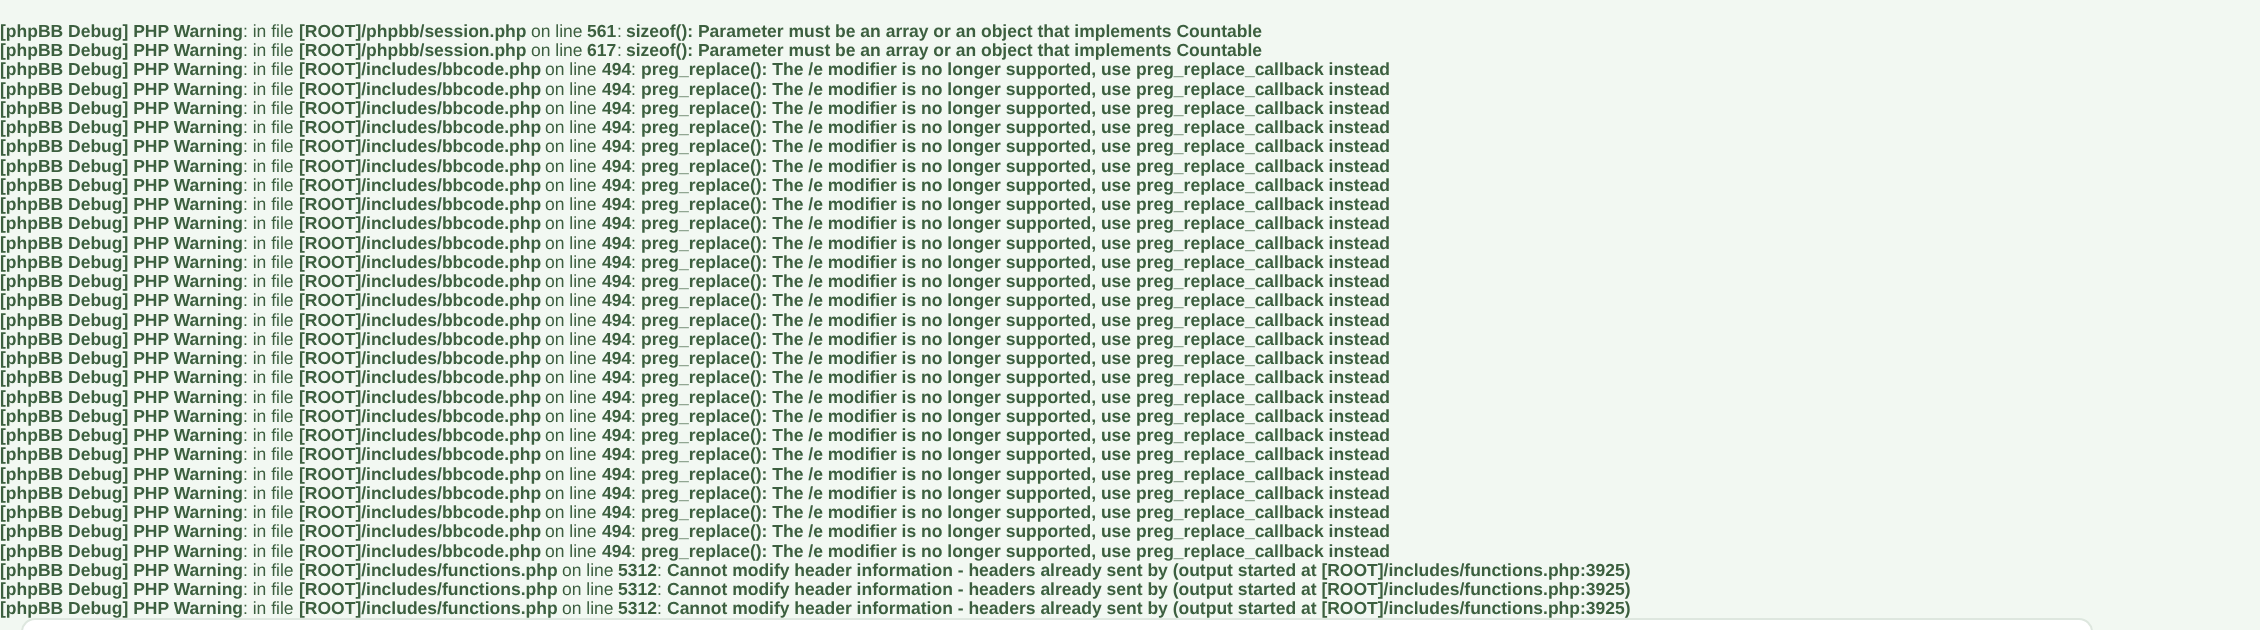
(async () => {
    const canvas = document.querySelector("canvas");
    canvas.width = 2260;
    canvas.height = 630;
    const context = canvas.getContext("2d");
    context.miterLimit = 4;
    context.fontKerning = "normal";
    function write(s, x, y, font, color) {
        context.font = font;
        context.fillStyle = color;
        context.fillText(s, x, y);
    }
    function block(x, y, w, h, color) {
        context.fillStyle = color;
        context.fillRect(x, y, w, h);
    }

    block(0, 0, 2260, 630, "rgb(242, 248, 242)");
    write("[phpBB Debug] PHP Warning", 0, 37, "bold 17.5px Liberation Sans", "rgb(60, 95, 63)");
    write(": in file", 243, 37, "17.5px Liberation Sans", "rgb(60, 95, 63)");
    write("[ROOT]/phpbb/session.php", 299, 37, "bold 17.5px Liberation Sans", "rgb(60, 95, 63)");
    write("on line", 531, 37, "17.5px Liberation Sans", "rgb(60, 95, 63)");
    write("561", 587, 37, "bold 17.5px Liberation Sans", "rgb(60, 95, 63)");
    write(":", 617, 37, "17.5px Liberation Sans", "rgb(60, 95, 63)");
    write("sizeof(): Parameter must be an array or an object that implements Countable", 626, 37, "bold 17.5px Liberation Sans", "rgb(60, 95, 63)");
    write("[phpBB Debug] PHP Warning", 0, 56, "bold 17.5px Liberation Sans", "rgb(60, 95, 63)");
    write(": in file", 243, 56, "17.5px Liberation Sans", "rgb(60, 95, 63)");
    write("[ROOT]/phpbb/session.php", 299, 56, "bold 17.5px Liberation Sans", "rgb(60, 95, 63)");
    write("on line", 531, 56, "17.5px Liberation Sans", "rgb(60, 95, 63)");
    write("617", 587, 56, "bold 17.5px Liberation Sans", "rgb(60, 95, 63)");
    write(":", 617, 56, "17.5px Liberation Sans", "rgb(60, 95, 63)");
    write("sizeof(): Parameter must be an array or an object that implements Countable", 626, 56, "bold 17.5px Liberation Sans", "rgb(60, 95, 63)");
    write("[phpBB Debug] PHP Warning", 0, 75, "bold 17.5px Liberation Sans", "rgb(60, 95, 63)");
    write(": in file", 243, 75, "17.5px Liberation Sans", "rgb(60, 95, 63)");
    write("[ROOT]/includes/bbcode.php", 299, 75, "bold 17.5px Liberation Sans", "rgb(60, 95, 63)");
    write("on line", 545, 75, "17.5px Liberation Sans", "rgb(60, 95, 63)");
    write("494", 602, 75, "bold 17.5px Liberation Sans", "rgb(60, 95, 63)");
    write(":", 631, 75, "17.5px Liberation Sans", "rgb(60, 95, 63)");
    write("preg_replace(): The /e modifier is no longer supported, use preg_replace_callback instead", 641, 75, "bold 17.5px Liberation Sans", "rgb(60, 95, 63)");
    write("[phpBB Debug] PHP Warning", 0, 95, "bold 17.5px Liberation Sans", "rgb(60, 95, 63)");
    write(": in file", 243, 95, "17.5px Liberation Sans", "rgb(60, 95, 63)");
    write("[ROOT]/includes/bbcode.php", 299, 95, "bold 17.5px Liberation Sans", "rgb(60, 95, 63)");
    write("on line", 545, 95, "17.5px Liberation Sans", "rgb(60, 95, 63)");
    write("494", 602, 95, "bold 17.5px Liberation Sans", "rgb(60, 95, 63)");
    write(":", 631, 95, "17.5px Liberation Sans", "rgb(60, 95, 63)");
    write("preg_replace(): The /e modifier is no longer supported, use preg_replace_callback instead", 641, 95, "bold 17.5px Liberation Sans", "rgb(60, 95, 63)");
    write("[phpBB Debug] PHP Warning", 0, 114, "bold 17.5px Liberation Sans", "rgb(60, 95, 63)");
    write(": in file", 243, 114, "17.5px Liberation Sans", "rgb(60, 95, 63)");
    write("[ROOT]/includes/bbcode.php", 299, 114, "bold 17.5px Liberation Sans", "rgb(60, 95, 63)");
    write("on line", 545, 114, "17.5px Liberation Sans", "rgb(60, 95, 63)");
    write("494", 602, 114, "bold 17.5px Liberation Sans", "rgb(60, 95, 63)");
    write(":", 631, 114, "17.5px Liberation Sans", "rgb(60, 95, 63)");
    write("preg_replace(): The /e modifier is no longer supported, use preg_replace_callback instead", 641, 114, "bold 17.5px Liberation Sans", "rgb(60, 95, 63)");
    write("[phpBB Debug] PHP Warning", 0, 133, "bold 17.5px Liberation Sans", "rgb(60, 95, 63)");
    write(": in file", 243, 133, "17.5px Liberation Sans", "rgb(60, 95, 63)");
    write("[ROOT]/includes/bbcode.php", 299, 133, "bold 17.5px Liberation Sans", "rgb(60, 95, 63)");
    write("on line", 545, 133, "17.5px Liberation Sans", "rgb(60, 95, 63)");
    write("494", 602, 133, "bold 17.5px Liberation Sans", "rgb(60, 95, 63)");
    write(":", 631, 133, "17.5px Liberation Sans", "rgb(60, 95, 63)");
    write("preg_replace(): The /e modifier is no longer supported, use preg_replace_callback instead", 641, 133, "bold 17.5px Liberation Sans", "rgb(60, 95, 63)");
    write("[phpBB Debug] PHP Warning", 0, 152, "bold 17.5px Liberation Sans", "rgb(60, 95, 63)");
    write(": in file", 243, 152, "17.5px Liberation Sans", "rgb(60, 95, 63)");
    write("[ROOT]/includes/bbcode.php", 299, 152, "bold 17.5px Liberation Sans", "rgb(60, 95, 63)");
    write("on line", 545, 152, "17.5px Liberation Sans", "rgb(60, 95, 63)");
    write("494", 602, 152, "bold 17.5px Liberation Sans", "rgb(60, 95, 63)");
    write(":", 631, 152, "17.5px Liberation Sans", "rgb(60, 95, 63)");
    write("preg_replace(): The /e modifier is no longer supported, use preg_replace_callback instead", 641, 152, "bold 17.5px Liberation Sans", "rgb(60, 95, 63)");
    write("[phpBB Debug] PHP Warning", 0, 172, "bold 17.5px Liberation Sans", "rgb(60, 95, 63)");
    write(": in file", 243, 172, "17.5px Liberation Sans", "rgb(60, 95, 63)");
    write("[ROOT]/includes/bbcode.php", 299, 172, "bold 17.5px Liberation Sans", "rgb(60, 95, 63)");
    write("on line", 545, 172, "17.5px Liberation Sans", "rgb(60, 95, 63)");
    write("494", 602, 172, "bold 17.5px Liberation Sans", "rgb(60, 95, 63)");
    write(":", 631, 172, "17.5px Liberation Sans", "rgb(60, 95, 63)");
    write("preg_replace(): The /e modifier is no longer supported, use preg_replace_callback instead", 641, 172, "bold 17.5px Liberation Sans", "rgb(60, 95, 63)");
    write("[phpBB Debug] PHP Warning", 0, 191, "bold 17.5px Liberation Sans", "rgb(60, 95, 63)");
    write(": in file", 243, 191, "17.5px Liberation Sans", "rgb(60, 95, 63)");
    write("[ROOT]/includes/bbcode.php", 299, 191, "bold 17.5px Liberation Sans", "rgb(60, 95, 63)");
    write("on line", 545, 191, "17.5px Liberation Sans", "rgb(60, 95, 63)");
    write("494", 602, 191, "bold 17.5px Liberation Sans", "rgb(60, 95, 63)");
    write(":", 631, 191, "17.5px Liberation Sans", "rgb(60, 95, 63)");
    write("preg_replace(): The /e modifier is no longer supported, use preg_replace_callback instead", 641, 191, "bold 17.5px Liberation Sans", "rgb(60, 95, 63)");
    write("[phpBB Debug] PHP Warning", 0, 210, "bold 17.5px Liberation Sans", "rgb(60, 95, 63)");
    write(": in file", 243, 210, "17.5px Liberation Sans", "rgb(60, 95, 63)");
    write("[ROOT]/includes/bbcode.php", 299, 210, "bold 17.5px Liberation Sans", "rgb(60, 95, 63)");
    write("on line", 545, 210, "17.5px Liberation Sans", "rgb(60, 95, 63)");
    write("494", 602, 210, "bold 17.5px Liberation Sans", "rgb(60, 95, 63)");
    write(":", 631, 210, "17.5px Liberation Sans", "rgb(60, 95, 63)");
    write("preg_replace(): The /e modifier is no longer supported, use preg_replace_callback instead", 641, 210, "bold 17.5px Liberation Sans", "rgb(60, 95, 63)");
    write("[phpBB Debug] PHP Warning", 0, 229, "bold 17.5px Liberation Sans", "rgb(60, 95, 63)");
    write(": in file", 243, 229, "17.5px Liberation Sans", "rgb(60, 95, 63)");
    write("[ROOT]/includes/bbcode.php", 299, 229, "bold 17.5px Liberation Sans", "rgb(60, 95, 63)");
    write("on line", 545, 229, "17.5px Liberation Sans", "rgb(60, 95, 63)");
    write("494", 602, 229, "bold 17.5px Liberation Sans", "rgb(60, 95, 63)");
    write(":", 631, 229, "17.5px Liberation Sans", "rgb(60, 95, 63)");
    write("preg_replace(): The /e modifier is no longer supported, use preg_replace_callback instead", 641, 229, "bold 17.5px Liberation Sans", "rgb(60, 95, 63)");
    write("[phpBB Debug] PHP Warning", 0, 249, "bold 17.5px Liberation Sans", "rgb(60, 95, 63)");
    write(": in file", 243, 249, "17.5px Liberation Sans", "rgb(60, 95, 63)");
    write("[ROOT]/includes/bbcode.php", 299, 249, "bold 17.5px Liberation Sans", "rgb(60, 95, 63)");
    write("on line", 545, 249, "17.5px Liberation Sans", "rgb(60, 95, 63)");
    write("494", 602, 249, "bold 17.5px Liberation Sans", "rgb(60, 95, 63)");
    write(":", 631, 249, "17.5px Liberation Sans", "rgb(60, 95, 63)");
    write("preg_replace(): The /e modifier is no longer supported, use preg_replace_callback instead", 641, 249, "bold 17.5px Liberation Sans", "rgb(60, 95, 63)");
    write("[phpBB Debug] PHP Warning", 0, 268, "bold 17.5px Liberation Sans", "rgb(60, 95, 63)");
    write(": in file", 243, 268, "17.5px Liberation Sans", "rgb(60, 95, 63)");
    write("[ROOT]/includes/bbcode.php", 299, 268, "bold 17.5px Liberation Sans", "rgb(60, 95, 63)");
    write("on line", 545, 268, "17.5px Liberation Sans", "rgb(60, 95, 63)");
    write("494", 602, 268, "bold 17.5px Liberation Sans", "rgb(60, 95, 63)");
    write(":", 631, 268, "17.5px Liberation Sans", "rgb(60, 95, 63)");
    write("preg_replace(): The /e modifier is no longer supported, use preg_replace_callback instead", 641, 268, "bold 17.5px Liberation Sans", "rgb(60, 95, 63)");
    write("[phpBB Debug] PHP Warning", 0, 287, "bold 17.5px Liberation Sans", "rgb(60, 95, 63)");
    write(": in file", 243, 287, "17.5px Liberation Sans", "rgb(60, 95, 63)");
    write("[ROOT]/includes/bbcode.php", 299, 287, "bold 17.5px Liberation Sans", "rgb(60, 95, 63)");
    write("on line", 545, 287, "17.5px Liberation Sans", "rgb(60, 95, 63)");
    write("494", 602, 287, "bold 17.5px Liberation Sans", "rgb(60, 95, 63)");
    write(":", 631, 287, "17.5px Liberation Sans", "rgb(60, 95, 63)");
    write("preg_replace(): The /e modifier is no longer supported, use preg_replace_callback instead", 641, 287, "bold 17.5px Liberation Sans", "rgb(60, 95, 63)");
    write("[phpBB Debug] PHP Warning", 0, 306, "bold 17.5px Liberation Sans", "rgb(60, 95, 63)");
    write(": in file", 243, 306, "17.5px Liberation Sans", "rgb(60, 95, 63)");
    write("[ROOT]/includes/bbcode.php", 299, 306, "bold 17.5px Liberation Sans", "rgb(60, 95, 63)");
    write("on line", 545, 306, "17.5px Liberation Sans", "rgb(60, 95, 63)");
    write("494", 602, 306, "bold 17.5px Liberation Sans", "rgb(60, 95, 63)");
    write(":", 631, 306, "17.5px Liberation Sans", "rgb(60, 95, 63)");
    write("preg_replace(): The /e modifier is no longer supported, use preg_replace_callback instead", 641, 306, "bold 17.5px Liberation Sans", "rgb(60, 95, 63)");
    write("[phpBB Debug] PHP Warning", 0, 326, "bold 17.5px Liberation Sans", "rgb(60, 95, 63)");
    write(": in file", 243, 326, "17.5px Liberation Sans", "rgb(60, 95, 63)");
    write("[ROOT]/includes/bbcode.php", 299, 326, "bold 17.5px Liberation Sans", "rgb(60, 95, 63)");
    write("on line", 545, 326, "17.5px Liberation Sans", "rgb(60, 95, 63)");
    write("494", 602, 326, "bold 17.5px Liberation Sans", "rgb(60, 95, 63)");
    write(":", 631, 326, "17.5px Liberation Sans", "rgb(60, 95, 63)");
    write("preg_replace(): The /e modifier is no longer supported, use preg_replace_callback instead", 641, 326, "bold 17.5px Liberation Sans", "rgb(60, 95, 63)");
    write("[phpBB Debug] PHP Warning", 0, 345, "bold 17.5px Liberation Sans", "rgb(60, 95, 63)");
    write(": in file", 243, 345, "17.5px Liberation Sans", "rgb(60, 95, 63)");
    write("[ROOT]/includes/bbcode.php", 299, 345, "bold 17.5px Liberation Sans", "rgb(60, 95, 63)");
    write("on line", 545, 345, "17.5px Liberation Sans", "rgb(60, 95, 63)");
    write("494", 602, 345, "bold 17.5px Liberation Sans", "rgb(60, 95, 63)");
    write(":", 631, 345, "17.5px Liberation Sans", "rgb(60, 95, 63)");
    write("preg_replace(): The /e modifier is no longer supported, use preg_replace_callback instead", 641, 345, "bold 17.5px Liberation Sans", "rgb(60, 95, 63)");
    write("[phpBB Debug] PHP Warning", 0, 364, "bold 17.5px Liberation Sans", "rgb(60, 95, 63)");
    write(": in file", 243, 364, "17.5px Liberation Sans", "rgb(60, 95, 63)");
    write("[ROOT]/includes/bbcode.php", 299, 364, "bold 17.5px Liberation Sans", "rgb(60, 95, 63)");
    write("on line", 545, 364, "17.5px Liberation Sans", "rgb(60, 95, 63)");
    write("494", 602, 364, "bold 17.5px Liberation Sans", "rgb(60, 95, 63)");
    write(":", 631, 364, "17.5px Liberation Sans", "rgb(60, 95, 63)");
    write("preg_replace(): The /e modifier is no longer supported, use preg_replace_callback instead", 641, 364, "bold 17.5px Liberation Sans", "rgb(60, 95, 63)");
    write("[phpBB Debug] PHP Warning", 0, 383, "bold 17.5px Liberation Sans", "rgb(60, 95, 63)");
    write(": in file", 243, 383, "17.5px Liberation Sans", "rgb(60, 95, 63)");
    write("[ROOT]/includes/bbcode.php", 299, 383, "bold 17.5px Liberation Sans", "rgb(60, 95, 63)");
    write("on line", 545, 383, "17.5px Liberation Sans", "rgb(60, 95, 63)");
    write("494", 602, 383, "bold 17.5px Liberation Sans", "rgb(60, 95, 63)");
    write(":", 631, 383, "17.5px Liberation Sans", "rgb(60, 95, 63)");
    write("preg_replace(): The /e modifier is no longer supported, use preg_replace_callback instead", 641, 383, "bold 17.5px Liberation Sans", "rgb(60, 95, 63)");
    write("[phpBB Debug] PHP Warning", 0, 403, "bold 17.5px Liberation Sans", "rgb(60, 95, 63)");
    write(": in file", 243, 403, "17.5px Liberation Sans", "rgb(60, 95, 63)");
    write("[ROOT]/includes/bbcode.php", 299, 403, "bold 17.5px Liberation Sans", "rgb(60, 95, 63)");
    write("on line", 545, 403, "17.5px Liberation Sans", "rgb(60, 95, 63)");
    write("494", 602, 403, "bold 17.5px Liberation Sans", "rgb(60, 95, 63)");
    write(":", 631, 403, "17.5px Liberation Sans", "rgb(60, 95, 63)");
    write("preg_replace(): The /e modifier is no longer supported, use preg_replace_callback instead", 641, 403, "bold 17.5px Liberation Sans", "rgb(60, 95, 63)");
    write("[phpBB Debug] PHP Warning", 0, 422, "bold 17.5px Liberation Sans", "rgb(60, 95, 63)");
    write(": in file", 243, 422, "17.5px Liberation Sans", "rgb(60, 95, 63)");
    write("[ROOT]/includes/bbcode.php", 299, 422, "bold 17.5px Liberation Sans", "rgb(60, 95, 63)");
    write("on line", 545, 422, "17.5px Liberation Sans", "rgb(60, 95, 63)");
    write("494", 602, 422, "bold 17.5px Liberation Sans", "rgb(60, 95, 63)");
    write(":", 631, 422, "17.5px Liberation Sans", "rgb(60, 95, 63)");
    write("preg_replace(): The /e modifier is no longer supported, use preg_replace_callback instead", 641, 422, "bold 17.5px Liberation Sans", "rgb(60, 95, 63)");
    write("[phpBB Debug] PHP Warning", 0, 441, "bold 17.5px Liberation Sans", "rgb(60, 95, 63)");
    write(": in file", 243, 441, "17.5px Liberation Sans", "rgb(60, 95, 63)");
    write("[ROOT]/includes/bbcode.php", 299, 441, "bold 17.5px Liberation Sans", "rgb(60, 95, 63)");
    write("on line", 545, 441, "17.5px Liberation Sans", "rgb(60, 95, 63)");
    write("494", 602, 441, "bold 17.5px Liberation Sans", "rgb(60, 95, 63)");
    write(":", 631, 441, "17.5px Liberation Sans", "rgb(60, 95, 63)");
    write("preg_replace(): The /e modifier is no longer supported, use preg_replace_callback instead", 641, 441, "bold 17.5px Liberation Sans", "rgb(60, 95, 63)");
    write("[phpBB Debug] PHP Warning", 0, 460, "bold 17.5px Liberation Sans", "rgb(60, 95, 63)");
    write(": in file", 243, 460, "17.5px Liberation Sans", "rgb(60, 95, 63)");
    write("[ROOT]/includes/bbcode.php", 299, 460, "bold 17.5px Liberation Sans", "rgb(60, 95, 63)");
    write("on line", 545, 460, "17.5px Liberation Sans", "rgb(60, 95, 63)");
    write("494", 602, 460, "bold 17.5px Liberation Sans", "rgb(60, 95, 63)");
    write(":", 631, 460, "17.5px Liberation Sans", "rgb(60, 95, 63)");
    write("preg_replace(): The /e modifier is no longer supported, use preg_replace_callback instead", 641, 460, "bold 17.5px Liberation Sans", "rgb(60, 95, 63)");
    write("[phpBB Debug] PHP Warning", 0, 480, "bold 17.5px Liberation Sans", "rgb(60, 95, 63)");
    write(": in file", 243, 480, "17.5px Liberation Sans", "rgb(60, 95, 63)");
    write("[ROOT]/includes/bbcode.php", 299, 480, "bold 17.5px Liberation Sans", "rgb(60, 95, 63)");
    write("on line", 545, 480, "17.5px Liberation Sans", "rgb(60, 95, 63)");
    write("494", 602, 480, "bold 17.5px Liberation Sans", "rgb(60, 95, 63)");
    write(":", 631, 480, "17.5px Liberation Sans", "rgb(60, 95, 63)");
    write("preg_replace(): The /e modifier is no longer supported, use preg_replace_callback instead", 641, 480, "bold 17.5px Liberation Sans", "rgb(60, 95, 63)");
    write("[phpBB Debug] PHP Warning", 0, 499, "bold 17.5px Liberation Sans", "rgb(60, 95, 63)");
    write(": in file", 243, 499, "17.5px Liberation Sans", "rgb(60, 95, 63)");
    write("[ROOT]/includes/bbcode.php", 299, 499, "bold 17.5px Liberation Sans", "rgb(60, 95, 63)");
    write("on line", 545, 499, "17.5px Liberation Sans", "rgb(60, 95, 63)");
    write("494", 602, 499, "bold 17.5px Liberation Sans", "rgb(60, 95, 63)");
    write(":", 631, 499, "17.5px Liberation Sans", "rgb(60, 95, 63)");
    write("preg_replace(): The /e modifier is no longer supported, use preg_replace_callback instead", 641, 499, "bold 17.5px Liberation Sans", "rgb(60, 95, 63)");
    write("[phpBB Debug] PHP Warning", 0, 518, "bold 17.5px Liberation Sans", "rgb(60, 95, 63)");
    write(": in file", 243, 518, "17.5px Liberation Sans", "rgb(60, 95, 63)");
    write("[ROOT]/includes/bbcode.php", 299, 518, "bold 17.5px Liberation Sans", "rgb(60, 95, 63)");
    write("on line", 545, 518, "17.5px Liberation Sans", "rgb(60, 95, 63)");
    write("494", 602, 518, "bold 17.5px Liberation Sans", "rgb(60, 95, 63)");
    write(":", 631, 518, "17.5px Liberation Sans", "rgb(60, 95, 63)");
    write("preg_replace(): The /e modifier is no longer supported, use preg_replace_callback instead", 641, 518, "bold 17.5px Liberation Sans", "rgb(60, 95, 63)");
    write("[phpBB Debug] PHP Warning", 0, 537, "bold 17.5px Liberation Sans", "rgb(60, 95, 63)");
    write(": in file", 243, 537, "17.5px Liberation Sans", "rgb(60, 95, 63)");
    write("[ROOT]/includes/bbcode.php", 299, 537, "bold 17.5px Liberation Sans", "rgb(60, 95, 63)");
    write("on line", 545, 537, "17.5px Liberation Sans", "rgb(60, 95, 63)");
    write("494", 602, 537, "bold 17.5px Liberation Sans", "rgb(60, 95, 63)");
    write(":", 631, 537, "17.5px Liberation Sans", "rgb(60, 95, 63)");
    write("preg_replace(): The /e modifier is no longer supported, use preg_replace_callback instead", 641, 537, "bold 17.5px Liberation Sans", "rgb(60, 95, 63)");
    write("[phpBB Debug] PHP Warning", 0, 557, "bold 17.5px Liberation Sans", "rgb(60, 95, 63)");
    write(": in file", 243, 557, "17.5px Liberation Sans", "rgb(60, 95, 63)");
    write("[ROOT]/includes/bbcode.php", 299, 557, "bold 17.5px Liberation Sans", "rgb(60, 95, 63)");
    write("on line", 545, 557, "17.5px Liberation Sans", "rgb(60, 95, 63)");
    write("494", 602, 557, "bold 17.5px Liberation Sans", "rgb(60, 95, 63)");
    write(":", 631, 557, "17.5px Liberation Sans", "rgb(60, 95, 63)");
    write("preg_replace(): The /e modifier is no longer supported, use preg_replace_callback instead", 641, 557, "bold 17.5px Liberation Sans", "rgb(60, 95, 63)");
    write("[phpBB Debug] PHP Warning", 0, 576, "bold 17.5px Liberation Sans", "rgb(60, 95, 63)");
    write(": in file", 243, 576, "17.5px Liberation Sans", "rgb(60, 95, 63)");
    write("[ROOT]/includes/functions.php", 299, 576, "bold 17.5px Liberation Sans", "rgb(60, 95, 63)");
    write("on line", 562, 576, "17.5px Liberation Sans", "rgb(60, 95, 63)");
    write("5312", 618, 576, "bold 17.5px Liberation Sans", "rgb(60, 95, 63)");
    write(":", 657, 576, "17.5px Liberation Sans", "rgb(60, 95, 63)");
    write("Cannot modify header information - headers already sent by (output started at [ROOT]/includes/functions.php:3925)", 667, 576, "bold 17.5px Liberation Sans", "rgb(60, 95, 63)");
    write("[phpBB Debug] PHP Warning", 0, 595, "bold 17.5px Liberation Sans", "rgb(60, 95, 63)");
    write(": in file", 243, 595, "17.5px Liberation Sans", "rgb(60, 95, 63)");
    write("[ROOT]/includes/functions.php", 299, 595, "bold 17.5px Liberation Sans", "rgb(60, 95, 63)");
    write("on line", 562, 595, "17.5px Liberation Sans", "rgb(60, 95, 63)");
    write("5312", 618, 595, "bold 17.5px Liberation Sans", "rgb(60, 95, 63)");
    write(":", 657, 595, "17.5px Liberation Sans", "rgb(60, 95, 63)");
    write("Cannot modify header information - headers already sent by (output started at [ROOT]/includes/functions.php:3925)", 667, 595, "bold 17.5px Liberation Sans", "rgb(60, 95, 63)");
    write("[phpBB Debug] PHP Warning", 0, 614, "bold 17.5px Liberation Sans", "rgb(60, 95, 63)");
    write(": in file", 243, 614, "17.5px Liberation Sans", "rgb(60, 95, 63)");
    write("[ROOT]/includes/functions.php", 299, 614, "bold 17.5px Liberation Sans", "rgb(60, 95, 63)");
    write("on line", 562, 614, "17.5px Liberation Sans", "rgb(60, 95, 63)");
    write("5312", 618, 614, "bold 17.5px Liberation Sans", "rgb(60, 95, 63)");
    write(":", 657, 614, "17.5px Liberation Sans", "rgb(60, 95, 63)");
    write("Cannot modify header information - headers already sent by (output started at [ROOT]/includes/functions.php:3925)", 667, 614, "bold 17.5px Liberation Sans", "rgb(60, 95, 63)");
    context.fillStyle = "rgb(255, 255, 255)";
    context.beginPath();
    context.roundRect(22, 619, 2070, 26, 13);
    context.fill();
    context.strokeStyle = "rgb(222, 231, 223)";
    context.lineWidth = 2;
    context.stroke();
})();
